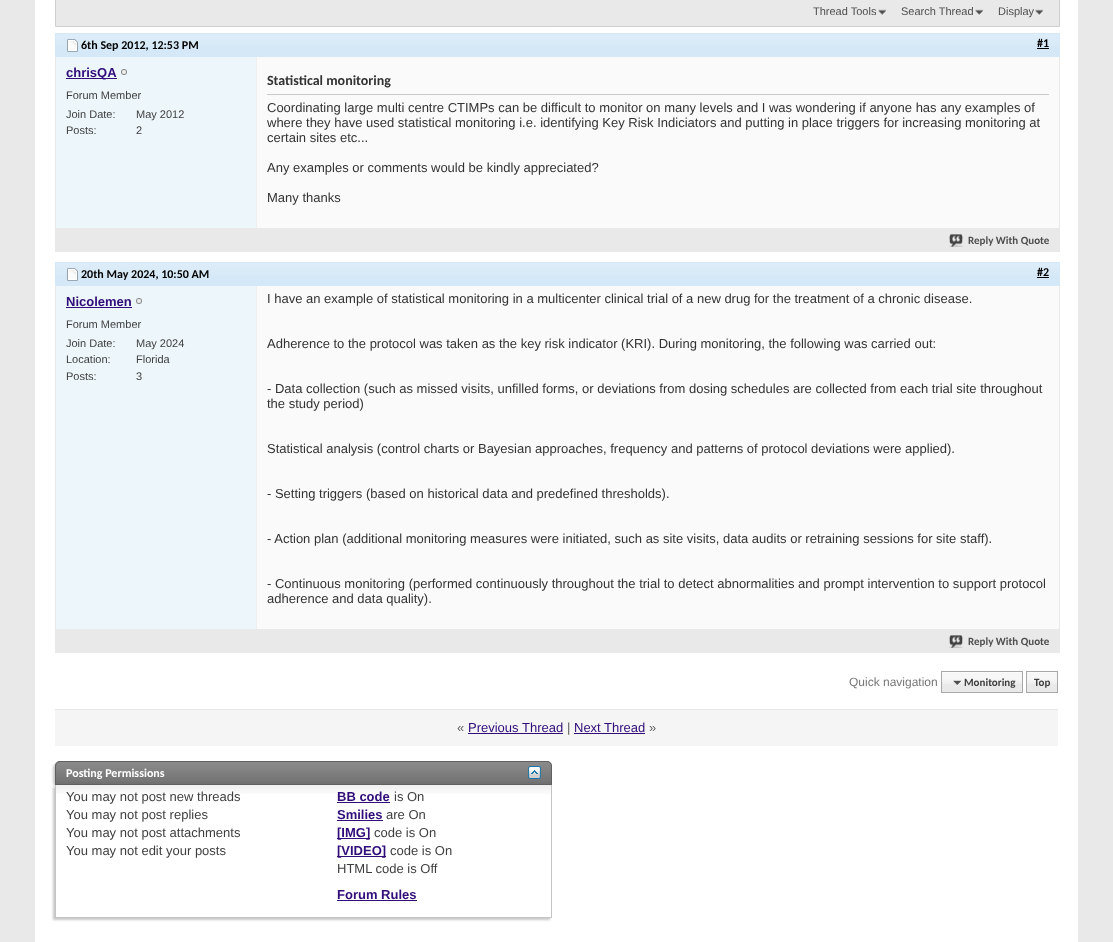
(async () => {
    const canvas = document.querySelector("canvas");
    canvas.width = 1113;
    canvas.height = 942;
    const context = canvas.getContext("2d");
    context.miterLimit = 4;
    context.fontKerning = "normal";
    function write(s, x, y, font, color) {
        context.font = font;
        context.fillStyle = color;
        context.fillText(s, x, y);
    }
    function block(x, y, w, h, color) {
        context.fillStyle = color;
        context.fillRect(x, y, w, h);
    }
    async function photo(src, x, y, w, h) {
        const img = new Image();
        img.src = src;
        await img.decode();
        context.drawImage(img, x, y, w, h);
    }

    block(0, 0, 1113, 942, "rgb(233, 233, 233)");
    block(35, 0, 1043, 942, "rgb(255, 255, 255)");
    context.fillStyle = "rgb(233, 233, 233)";
    context.beginPath();
    context.rect(55.5, -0.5, 1004, 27);
    context.fill();
    context.strokeStyle = "rgb(206, 206, 206)";
    context.stroke();
    await photo("media/1.png", 878, 9, 9, 7);
    write("Thread Tools", 813, 15, "11px Liberation Sans", "rgb(78, 78, 78)");
    await photo("media/1.png", 975, 9, 9, 7);
    write("Search Thread", 901, 15, "11px Liberation Sans", "rgb(78, 78, 78)");
    await photo("media/1.png", 1035, 9, 9, 7);
    write("Display", 998, 15, "11px Liberation Sans", "rgb(78, 78, 78)");
    context.strokeStyle = "rgb(233, 233, 233)";
    context.strokeRect(55.5, 33.5, 1004, 218);
    block(56, 34, 1003, 22, "rgb(213, 232, 247)");
    await photo("media/2.png", 56, 34, 1003, 12);
    context.strokeStyle = "rgb(213, 232, 247)";
    context.strokeRect(55.5, 33.5, 1004, 23);
    await photo("media/3.png", 67, 39, 11, 13);
    write("6th Sep 2012, 12:53 PM", 81, 49, "bold 12px Carlito", "rgb(0, 0, 0)");
    write("#1", 1037, 47, "bold 12px Carlito", "rgb(0, 0, 0)");
    block(1037, 48, 12, 1, "rgb(0, 0, 0)");
    block(56, 57, 200, 171, "rgb(237, 246, 251)");
    block(66, 78, 51, 1, "rgb(49, 13, 122)");
    write("chrisQA", 66, 77, "bold 13px Liberation Sans", "rgb(49, 13, 122)");
    await photo("media/4.png", 121, 69, 6, 6);
    write("Forum Member", 66, 99, "11px Liberation Sans", "rgb(62, 62, 62)");
    write("Join Date:", 66, 118, "11px Liberation Sans", "rgb(62, 62, 62)");
    write("May 2012", 136, 118, "11px Liberation Sans", "rgb(62, 62, 62)");
    write("Posts:", 66, 134, "11px Liberation Sans", "rgb(62, 62, 62)");
    write("2", 136, 134, "11px Liberation Sans", "rgb(62, 62, 62)");
    block(257, 57, 802, 171, "rgb(250, 250, 250)");
    block(256, 57, 1, 171, "rgb(239, 239, 239)");
    block(267, 94, 782, 1, "rgb(200, 200, 200)");
    write("Statistical monitoring", 267, 85, "bold 14px Carlito", "rgb(51, 51, 51)");
    write("Coordinating large multi centre CTIMPs can be difficult to monitor on many levels and I was wondering if anyone has any examples of", 267, 112, "13px Liberation Sans", "rgb(51, 51, 51)");
    write("where they have used statistical monitoring i.e. identifying Key Risk Indiciators and putting in place triggers for increasing monitoring at", 267, 127, "13px Liberation Sans", "rgb(51, 51, 51)");
    write("certain sites etc...", 267, 142, "13px Liberation Sans", "rgb(51, 51, 51)");
    write("Any examples or comments would be kindly appreciated?", 267, 172, "13px Liberation Sans", "rgb(51, 51, 51)");
    write("Many thanks", 267, 202, "13px Liberation Sans", "rgb(51, 51, 51)");
    block(56, 228, 1003, 23, "rgb(233, 233, 233)");
    await photo("media/5.png", 949, 234, 14, 13);
    write("Reply With Quote", 968, 244, "bold 11px Carlito", "rgb(78, 78, 78)");
    context.strokeStyle = "rgb(233, 233, 233)";
    context.strokeRect(55.5, 262.5, 1004, 390);
    block(56, 263, 1003, 22, "rgb(213, 232, 247)");
    await photo("media/2.png", 56, 263, 1003, 12);
    context.strokeStyle = "rgb(213, 232, 247)";
    context.strokeRect(55.5, 262.5, 1004, 23);
    await photo("media/3.png", 67, 268, 11, 13);
    write("20th May 2024, 10:50 AM", 81, 278, "bold 12px Carlito", "rgb(0, 0, 0)");
    write("#2", 1037, 276, "bold 12px Carlito", "rgb(0, 0, 0)");
    block(1037, 277, 12, 1, "rgb(0, 0, 0)");
    block(56, 286, 200, 343, "rgb(237, 246, 251)");
    write("Nicolemen", 66, 306, "bold 13px Liberation Sans", "rgb(49, 13, 122)");
    block(66, 307, 66, 1, "rgb(49, 13, 122)");
    await photo("media/4.png", 136, 298, 6, 6);
    write("Forum Member", 66, 328, "11px Liberation Sans", "rgb(62, 62, 62)");
    write("Join Date:", 66, 347, "11px Liberation Sans", "rgb(62, 62, 62)");
    write("May 2024", 136, 347, "11px Liberation Sans", "rgb(62, 62, 62)");
    write("Location:", 66, 363, "11px Liberation Sans", "rgb(62, 62, 62)");
    write("Florida", 136, 363, "11px Liberation Sans", "rgb(62, 62, 62)");
    write("Posts:", 66, 380, "11px Liberation Sans", "rgb(62, 62, 62)");
    write("3", 136, 380, "11px Liberation Sans", "rgb(62, 62, 62)");
    block(257, 286, 802, 343, "rgb(250, 250, 250)");
    block(256, 286, 1, 343, "rgb(239, 239, 239)");
    write("I have an example of statistical monitoring in a multicenter clinical trial of a new drug for the treatment of a chronic disease.", 267, 303, "13px Liberation Sans", "rgb(51, 51, 51)");
    write("Adherence to the protocol was taken as the key risk indicator (KRI). During monitoring, the following was carried out:", 267, 348, "13px Liberation Sans", "rgb(51, 51, 51)");
    write("- Data collection (such as missed visits, unfilled forms, or deviations from dosing schedules are collected from each trial site throughout", 267, 393, "13px Liberation Sans", "rgb(51, 51, 51)");
    write("the study period)", 267, 408, "13px Liberation Sans", "rgb(51, 51, 51)");
    write("Statistical analysis (control charts or Bayesian approaches, frequency and patterns of protocol deviations were applied).", 267, 453, "13px Liberation Sans", "rgb(51, 51, 51)");
    write("- Setting triggers (based on historical data and predefined thresholds).", 267, 498, "13px Liberation Sans", "rgb(51, 51, 51)");
    write("- Action plan (additional monitoring measures were initiated, such as site visits, data audits or retraining sessions for site staff).", 267, 543, "13px Liberation Sans", "rgb(51, 51, 51)");
    write("- Continuous monitoring (performed continuously throughout the trial to detect abnormalities and prompt intervention to support protocol", 267, 588, "13px Liberation Sans", "rgb(51, 51, 51)");
    write("adherence and data quality).", 267, 603, "13px Liberation Sans", "rgb(51, 51, 51)");
    block(56, 629, 1003, 23, "rgb(233, 233, 233)");
    await photo("media/5.png", 949, 635, 14, 13);
    write("Reply With Quote", 968, 645, "bold 11px Carlito", "rgb(78, 78, 78)");
    write("Quick navigation", 849, 686, "12px Liberation Sans", "rgb(119, 119, 119)");
    block(942, 672, 80, 20, "rgb(233, 233, 233)");
    await photo("media/6.png", 942, 672, 80, 12);
    block(1027, 672, 30, 20, "rgb(233, 233, 233)");
    await photo("media/7.png", 1027, 672, 30, 12);
    context.strokeStyle = "rgb(168, 168, 168)";
    context.strokeRect(941.5, 671.5, 81, 21);
    await photo("media/8.png", 953, 680, 9, 6);
    write("Monitoring", 964, 686, "bold 11px Carlito", "rgb(62, 62, 62)");
    context.strokeRect(1026.5, 671.5, 31, 21);
    write("Top", 1034, 686, "bold 11px Carlito", "rgb(62, 62, 62)");
    block(55, 710, 1003, 36, "rgb(245, 245, 245)");
    block(55, 709, 1003, 1, "rgb(231, 231, 231)");
    write("«", 457, 732, "13px Liberation Sans", "rgb(93, 93, 93)");
    write("Previous Thread", 468, 732, "13px Liberation Sans", "rgb(49, 13, 122)");
    block(468, 733, 95, 1, "rgb(49, 13, 122)");
    write("|", 567, 732, "13px Liberation Sans", "rgb(93, 93, 93)");
    write("Next Thread", 574, 732, "13px Liberation Sans", "rgb(49, 13, 122)");
    block(574, 733, 71, 1, "rgb(49, 13, 122)");
    write("»", 649, 732, "13px Liberation Sans", "rgb(93, 93, 93)");
    context.fillStyle = "rgb(200, 200, 200)";
    context.filter = "blur(1px)";
    context.beginPath();
    context.roundRect(53, 763, 497, 24, 5);
    context.fill();
    context.filter = "none";
    context.fillStyle = "rgb(112, 112, 112)";
    context.beginPath();
    context.roundRect(55, 761, 497, 24, [5, 5, 0, 0]);
    context.fill();
    await photo("media/9.png", 55, 762, 497, 20);
    context.beginPath();
    context.roundRect(55.5, 761.5, 496, 23, [4.5, 4.5, 0, 0]);
    context.strokeStyle = "rgb(96, 96, 96)";
    context.stroke();
    write("Posting Permissions", 66, 777, "bold 12px Carlito", "rgb(255, 255, 255)");
    await photo("media/10.png", 528, 766, 13, 13);
    context.fillStyle = "rgb(200, 200, 200)";
    context.filter = "blur(1px)";
    context.beginPath();
    context.rect(53, 787, 497, 133);
    context.fill();
    context.filter = "none";
    block(56, 785, 495, 132, "rgb(255, 255, 255)");
    await photo("media/11.png", 56, 785, 495, 9);
    block(551, 785, 1, 133, "rgb(196, 196, 196)");
    block(55, 917, 497, 1, "rgb(196, 196, 196)");
    block(55, 785, 1, 133, "rgb(196, 196, 196)");
    write("You may not post new threads", 66, 801, "13px Liberation Sans", "rgb(62, 62, 62)");
    write("You may not post replies", 66, 819, "13px Liberation Sans", "rgb(62, 62, 62)");
    write("You may not post attachments", 66, 837, "13px Liberation Sans", "rgb(62, 62, 62)");
    write("You may not edit your posts", 66, 855, "13px Liberation Sans", "rgb(62, 62, 62)");
    write("BB code", 337, 801, "bold 13px Liberation Sans", "rgb(49, 13, 122)");
    block(337, 802, 53, 1, "rgb(49, 13, 122)");
    write("is On", 394, 801, "13px Liberation Sans", "rgb(62, 62, 62)");
    write("Smilies", 337, 819, "bold 13px Liberation Sans", "rgb(49, 13, 122)");
    block(337, 820, 46, 1, "rgb(49, 13, 122)");
    write("are On", 386, 819, "13px Liberation Sans", "rgb(62, 62, 62)");
    block(337, 838, 33, 1, "rgb(49, 13, 122)");
    write("[IMG]", 337, 837, "bold 13px Liberation Sans", "rgb(49, 13, 122)");
    write("code is On", 374, 837, "13px Liberation Sans", "rgb(62, 62, 62)");
    block(337, 856, 49, 1, "rgb(49, 13, 122)");
    write("[VIDEO]", 337, 855, "bold 13px Liberation Sans", "rgb(49, 13, 122)");
    write("code is On", 390, 855, "13px Liberation Sans", "rgb(62, 62, 62)");
    write("HTML code is Off", 337, 873, "13px Liberation Sans", "rgb(62, 62, 62)");
    write("Forum Rules", 337, 899, "bold 13px Liberation Sans", "rgb(49, 13, 122)");
    block(337, 900, 80, 1, "rgb(49, 13, 122)");
})();
